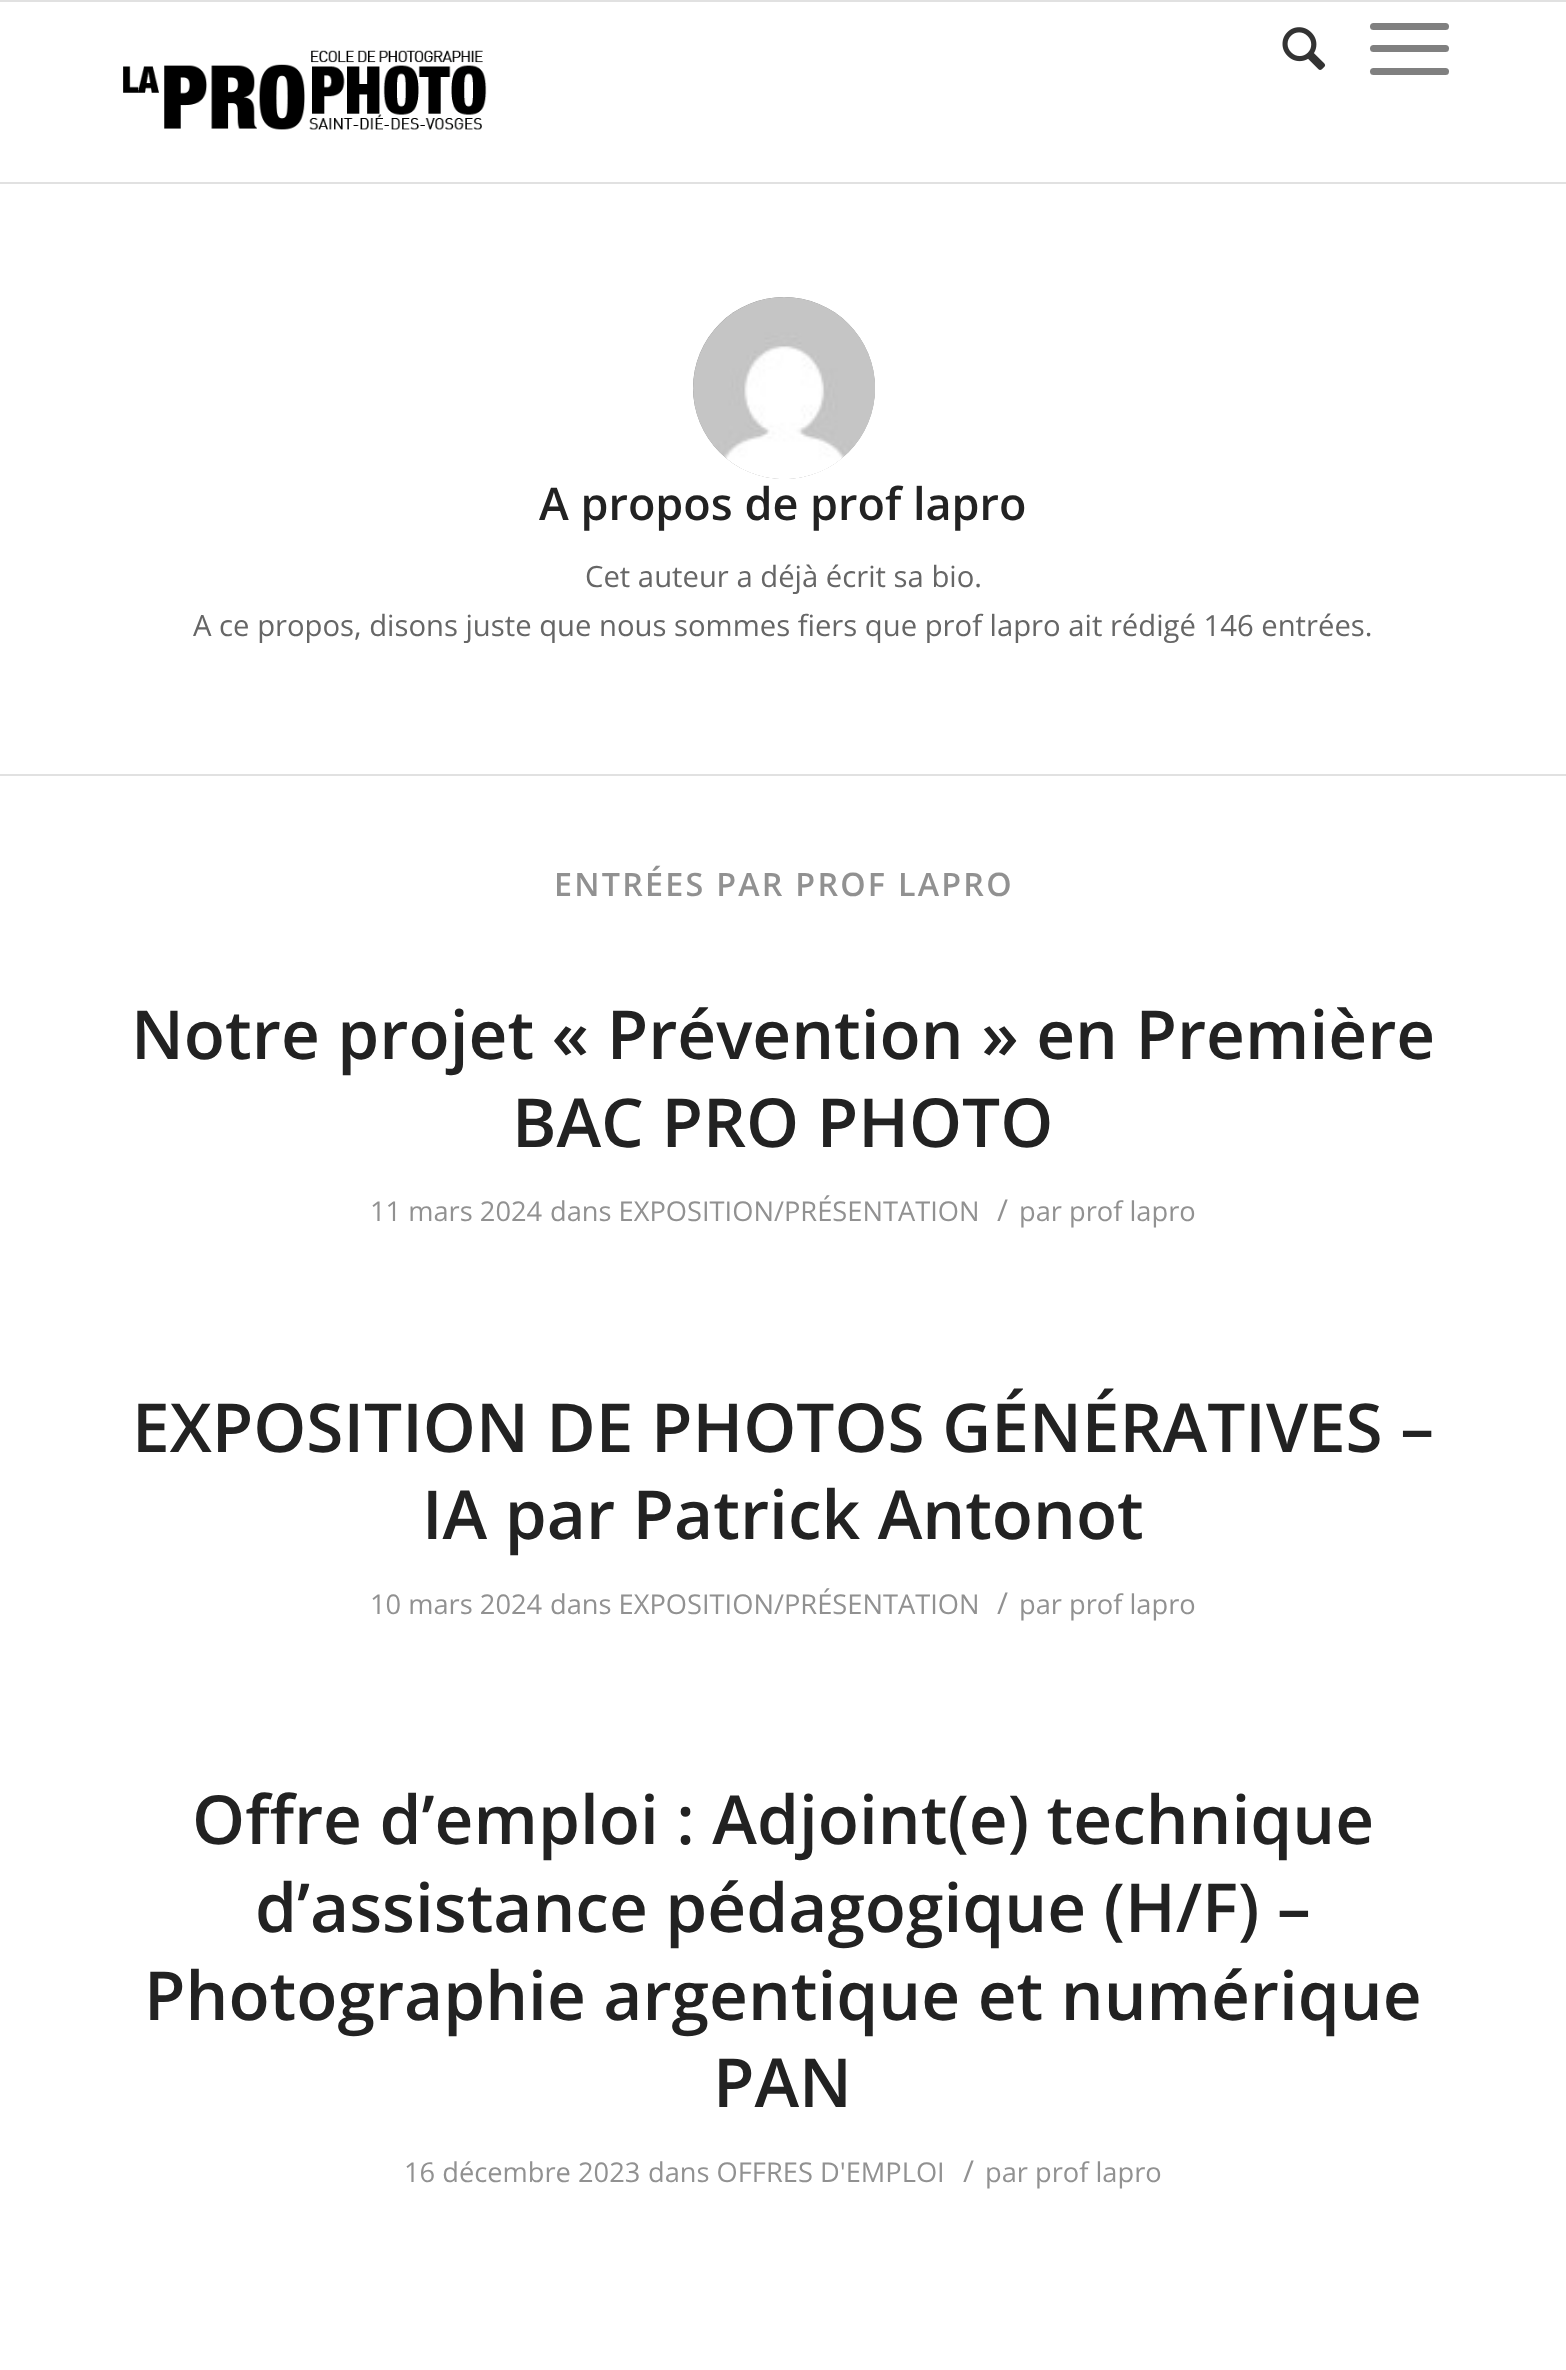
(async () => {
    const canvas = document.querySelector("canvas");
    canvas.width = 1566;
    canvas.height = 2370;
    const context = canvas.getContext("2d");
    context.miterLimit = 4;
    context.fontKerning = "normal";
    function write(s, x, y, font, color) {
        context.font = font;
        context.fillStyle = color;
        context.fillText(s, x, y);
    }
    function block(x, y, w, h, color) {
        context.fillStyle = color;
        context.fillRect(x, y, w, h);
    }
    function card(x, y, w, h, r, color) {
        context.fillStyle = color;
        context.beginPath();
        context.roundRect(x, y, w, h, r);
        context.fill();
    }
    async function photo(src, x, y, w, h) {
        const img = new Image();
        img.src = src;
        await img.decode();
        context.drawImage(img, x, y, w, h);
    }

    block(0, 0, 1566, 2370, "rgb(255, 255, 255)");
    block(0, 0, 1566, 2, "rgb(225, 225, 225)");
    block(0, 182, 1566, 2, "rgb(225, 225, 225)");
    await photo("media/1.png", 123, 50, 364, 80);
    await photo("media/2.png", 1282, 27, 44, 43);
    card(1370, 45, 79, 7, 3.5, "rgb(128, 128, 128)");
    card(1370, 23, 79, 7, 3.5, "rgb(128, 128, 128)");
    card(1370, 68, 79, 7, 3.5, "rgb(128, 128, 128)");
    context.fillStyle = "rgb(145, 145, 145)";
    context.beginPath();
    context.arc(784, 388, 91, 0, Math.PI * 2);
    context.fill();
    await photo("media/3.png", 693, 297, 182, 182);
    write("A propos de prof lapro", 539, 520, "600 45px Open Sans", "rgb(34, 34, 34)");
    write("Cet auteur a déjà écrit sa bio.", 585, 587, "29.25px Open Sans", "rgb(102, 102, 102)");
    write("A ce propos, disons juste que nous sommes fiers que prof lapro ait rédigé 146 entrées.", 193, 636, "29.25px Open Sans", "rgb(102, 102, 102)");
    block(0, 774, 1566, 2, "rgb(225, 225, 225)");
    context.letterSpacing = "2.25px";
    write("ENTRÉES PAR PROF LAPRO", 554, 896, "600 32.25px Open Sans", "rgb(145, 145, 145)");
    context.letterSpacing = "0px";
    write("Notre projet « Prévention » en Première", 131, 1059, "600 67.5px Open Sans", "rgb(34, 34, 34)");
    write("BAC PRO PHOTO", 512, 1147, "600 67.5px Open Sans", "rgb(34, 34, 34)");
    write("11 mars 2024", 370, 1221, "27.25px Open Sans", "rgb(145, 145, 145)");
    write("dans EXPOSITION/PRÉSENTATION", 550, 1221, "27.25px Open Sans", "rgb(145, 145, 145)");
    write("/", 997, 1221, "30px Open Sans", "rgb(145, 145, 145)");
    write("par prof lapro", 1019, 1221, "27.25px Open Sans", "rgb(145, 145, 145)");
    write("EXPOSITION DE PHOTOS GÉNÉRATIVES –", 132, 1452, "600 67.5px Open Sans", "rgb(34, 34, 34)");
    write("IA par Patrick Antonot", 422, 1539, "600 67.5px Open Sans", "rgb(34, 34, 34)");
    write("10 mars 2024", 370, 1614, "27.25px Open Sans", "rgb(145, 145, 145)");
    write("dans EXPOSITION/PRÉSENTATION", 550, 1614, "27.25px Open Sans", "rgb(145, 145, 145)");
    write("/", 997, 1614, "30px Open Sans", "rgb(145, 145, 145)");
    write("par prof lapro", 1019, 1614, "27.25px Open Sans", "rgb(145, 145, 145)");
    write("Offre d’emploi : Adjoint(e) technique", 192, 1844, "600 67.5px Open Sans", "rgb(34, 34, 34)");
    write("d’assistance pédagogique (H/F) –", 255, 1932, "600 67.5px Open Sans", "rgb(34, 34, 34)");
    write("Photographie argentique et numérique", 144, 2020, "600 67.5px Open Sans", "rgb(34, 34, 34)");
    write("PAN", 713, 2107, "600 67.5px Open Sans", "rgb(34, 34, 34)");
    write("16 décembre 2023", 404, 2182, "27.25px Open Sans", "rgb(145, 145, 145)");
    write("dans OFFRES D'EMPLOI", 648, 2182, "27.25px Open Sans", "rgb(145, 145, 145)");
    write("/", 963, 2182, "30px Open Sans", "rgb(145, 145, 145)");
    write("par prof lapro", 985, 2182, "27.25px Open Sans", "rgb(145, 145, 145)");
})();
